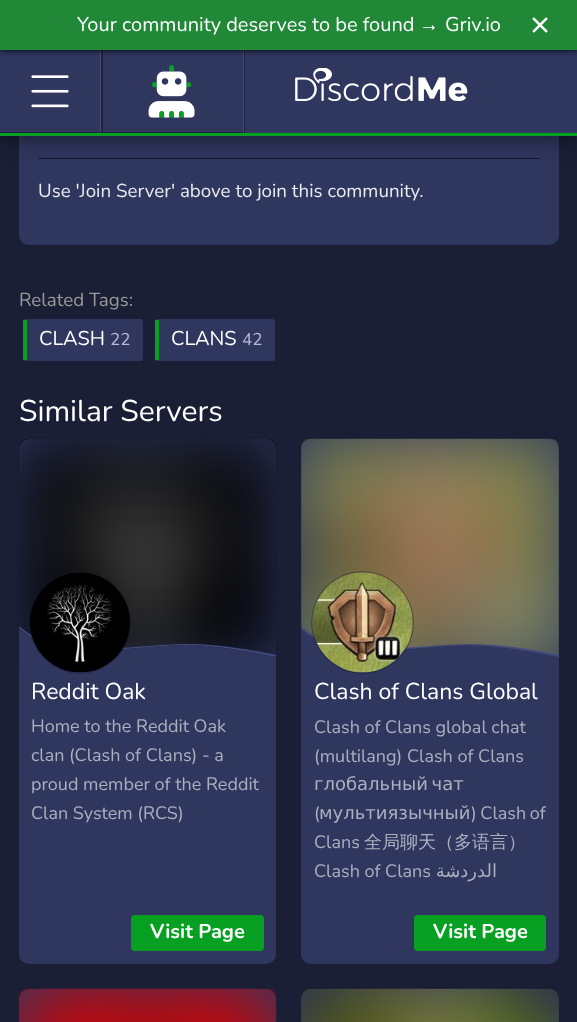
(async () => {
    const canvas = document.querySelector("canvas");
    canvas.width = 577;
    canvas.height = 1022;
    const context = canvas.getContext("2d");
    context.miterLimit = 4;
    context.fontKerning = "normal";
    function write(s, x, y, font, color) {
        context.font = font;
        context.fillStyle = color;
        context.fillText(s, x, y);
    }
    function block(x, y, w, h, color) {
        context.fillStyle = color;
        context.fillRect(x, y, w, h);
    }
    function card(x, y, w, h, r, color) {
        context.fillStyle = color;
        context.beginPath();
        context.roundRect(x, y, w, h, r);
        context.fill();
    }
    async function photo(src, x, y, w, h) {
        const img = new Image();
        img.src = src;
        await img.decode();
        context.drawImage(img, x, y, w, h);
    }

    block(0, 0, 577, 1022, "rgb(27, 31, 54)");
    card(19, 93, 540, 152, 10, "rgb(48, 55, 95)");
    block(38, 158, 502, 1, "rgb(24, 28, 48)");
    context.fillStyle = "rgba(0, 0, 0, 0.5)";
    context.filter = "blur(12.5px)";
    context.beginPath();
    context.rect(0, 3, 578, 135);
    context.fill();
    context.filter = "none";
    block(0, 50, 577, 83, "rgb(48, 55, 95)");
    block(0, 133, 577, 3, "rgb(8, 160, 35)");
    context.fillStyle = "rgb(27, 34, 68)";
    context.beginPath();
    context.moveTo(1, 132);
    context.lineTo(1, 133);
    context.lineTo(103, 133);
    context.lineTo(103, 50);
    context.lineTo(101, 50);
    context.lineTo(101, 132);
    context.closePath();
    context.fill();
    block(100, 50, 1, 83, "rgba(255, 255, 255, 0.1)");
    context.fillStyle = "rgb(27, 34, 68)";
    context.beginPath();
    context.moveTo(103, 132);
    context.lineTo(103, 133);
    context.lineTo(245, 133);
    context.lineTo(245, 50);
    context.lineTo(244, 50);
    context.lineTo(244, 132);
    context.closePath();
    context.fill();
    block(243, 50, 1, 83, "rgba(255, 255, 255, 0.1)");
    context.fillStyle = "rgb(0, 0, 0)";
    context.filter = "blur(3px)";
    context.beginPath();
    context.rect(0, 0, 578, 50);
    context.fill();
    context.filter = "none";
    block(0, 0, 577, 50, "rgb(33, 136, 56)");
    write("Your community deserves to be found", 77, 31, "20px Nunito", "rgb(255, 255, 255)");
    write("→", 419, 31, "20px Liberation Sans", "rgb(255, 255, 255)");
    write("Griv.io", 445, 31, "20px Nunito", "rgb(255, 255, 255)");
    await photo("media/1.png", 532, 17, 16, 16);
    await photo("media/2.png", 31, 75, 38, 33);
    await photo("media/3.png", 148, 65, 47, 53);
    await photo("media/4.png", 295, 68, 173, 33);
    write("Use 'Join Server' above to join this community.", 38, 197, "18.75px Nunito", "rgb(234, 235, 239)");
    write("Related Tags:", 19, 306, "18.75px Nunito", "rgb(153, 153, 153)");
    card(23, 319, 120, 42, 2.5, "rgb(48, 55, 95)");
    block(23, 320, 4, 40, "rgb(8, 160, 35)");
    write("CLASH", 39, 345, "20px Nunito", "rgb(255, 255, 255)");
    write("22", 110, 345, "17px Nunito", "rgb(181, 186, 217)");
    card(155, 319, 120, 42, 2.5, "rgb(48, 55, 95)");
    block(155, 320, 4, 40, "rgb(8, 160, 35)");
    write("CLANS", 171, 345, "20px Nunito", "rgb(255, 255, 255)");
    write("42", 242, 345, "17px Nunito", "rgb(181, 186, 217)");
    write("Similar Servers", 19, 421, "30px Nunito", "rgb(255, 255, 255)");
    card(19, 439, 257, 525, 10, "rgb(48, 55, 95)");
    await photo("media/5.png", 18, 438, 259, 235);
    context.fillStyle = "rgb(65, 75, 129)";
    context.beginPath();
    context.moveTo(183, 644);
    context.bezierCurveTo(143, 645, 114, 651, 79, 647);
    context.bezierCurveTo(32, 642, 19, 626, 19, 626);
    context.lineTo(19, 628);
    context.bezierCurveTo(19, 628, 32, 644, 79, 649);
    context.bezierCurveTo(114, 653, 143, 646, 183, 645);
    context.bezierCurveTo(224, 645, 276, 657, 276, 657);
    context.lineTo(276, 655);
    context.bezierCurveTo(276, 655, 224, 643, 183, 644);
    context.closePath();
    context.fill();
    context.fillStyle = "rgb(48, 55, 95)";
    context.beginPath();
    context.moveTo(183, 645);
    context.bezierCurveTo(135, 646, 87, 658, 39, 640);
    context.bezierCurveTo(33, 638, 24, 634, 19, 628);
    context.lineTo(19, 673);
    context.lineTo(276, 673);
    context.lineTo(276, 657);
    context.bezierCurveTo(276, 657, 224, 645, 183, 645);
    context.closePath();
    context.fill();
    context.beginPath();
    context.roundRect(29.5, 571.5, 101, 102, 50.5);
    context.strokeStyle = "rgba(20, 22, 40, 0.4)";
    context.stroke();
    await photo("media/6.png", 30, 572, 100, 101);
    write("Reddit Oak", 31, 699, "23px Nunito", "rgb(255, 255, 255)");
    write("Home to the Reddit Oak", 31, 732, "18px Nunito", "rgb(172, 175, 191)");
    write("clan (Clash of Clans) - a", 31, 761, "18px Nunito", "rgb(172, 175, 191)");
    write("proud member of the Reddit", 31, 790, "18px Nunito", "rgb(172, 175, 191)");
    write("Clan System (RCS)", 31, 819, "18px Nunito", "rgb(172, 175, 191)");
    card(131, 915, 133, 36, 4, "rgb(8, 160, 35)");
    write("Visit Page", 150, 938, "bold 20px Nunito", "rgb(255, 255, 255)");
    card(301, 439, 258, 525, 10, "rgb(48, 55, 95)");
    await photo("media/7.png", 301, 438, 258, 219);
    context.fillStyle = "rgb(65, 75, 129)";
    context.beginPath();
    context.moveTo(466, 644);
    context.bezierCurveTo(425, 645, 396, 651, 362, 647);
    context.bezierCurveTo(314, 642, 301, 626, 301, 626);
    context.lineTo(301, 628);
    context.bezierCurveTo(301, 628, 314, 644, 362, 649);
    context.bezierCurveTo(396, 653, 425, 646, 466, 645);
    context.bezierCurveTo(507, 645, 559, 657, 559, 657);
    context.lineTo(559, 655);
    context.bezierCurveTo(559, 655, 507, 643, 466, 644);
    context.closePath();
    context.fill();
    context.fillStyle = "rgb(48, 55, 95)";
    context.beginPath();
    context.moveTo(466, 645);
    context.bezierCurveTo(417, 646, 369, 658, 322, 640);
    context.bezierCurveTo(315, 638, 306, 634, 301, 628);
    context.lineTo(301, 673);
    context.lineTo(559, 673);
    context.lineTo(559, 657);
    context.bezierCurveTo(559, 657, 507, 645, 466, 645);
    context.closePath();
    context.fill();
    context.beginPath();
    context.arc(362.5, 622.5, 51, 0, Math.PI * 2);
    context.stroke();
    await photo("media/8.png", 312, 572, 101, 101);
    write("Clash of Clans Global", 314, 699, "23px Nunito", "rgb(255, 255, 255)");
    write("Clash of Clans global chat", 314, 733, "18px Nunito", "rgb(172, 175, 191)");
    write("(multilang) Clash of Clans", 314, 762, "18px Nunito", "rgb(172, 175, 191)");
    context.wordSpacing = "-2px";
    write("глобальный чат", 314, 790, "18px DejaVu Sans", "rgb(172, 175, 191)");
    context.wordSpacing = "0px";
    write("(", 314, 819, "18px Nunito", "rgb(172, 175, 191)");
    write("мультиязычный", 319, 819, "18px DejaVu Sans", "rgb(172, 175, 191)");
    context.wordSpacing = "-1px";
    write(") Clash of", 471, 819, "18px Nunito", "rgb(172, 175, 191)");
    context.wordSpacing = "0px";
    write("Clans", 314, 848, "18px Nunito", "rgb(172, 175, 191)");
    write("全局聊天（多语言）", 364, 848, "500 18px WenQuanYi Zen Hei", "rgb(172, 175, 191)");
    write("Clash of Clans", 314, 877, "18px Nunito", "rgb(172, 175, 191)");
    context.direction = "rtl";
    write("الدردشة", 497, 877, "18px DejaVu Sans", "rgb(172, 175, 191)");
    card(414, 915, 132, 36, 4, "rgb(8, 160, 35)");
    context.direction = "ltr";
    write("Visit Page", 433, 938, "bold 20px Nunito", "rgb(255, 255, 255)");
    card(19, 989, 257, 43, 10, "rgb(48, 55, 95)");
    await photo("media/9.png", 18, 988, 259, 34);
    card(301, 989, 258, 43, 10, "rgb(48, 55, 95)");
    await photo("media/10.png", 301, 988, 258, 34);
})();
